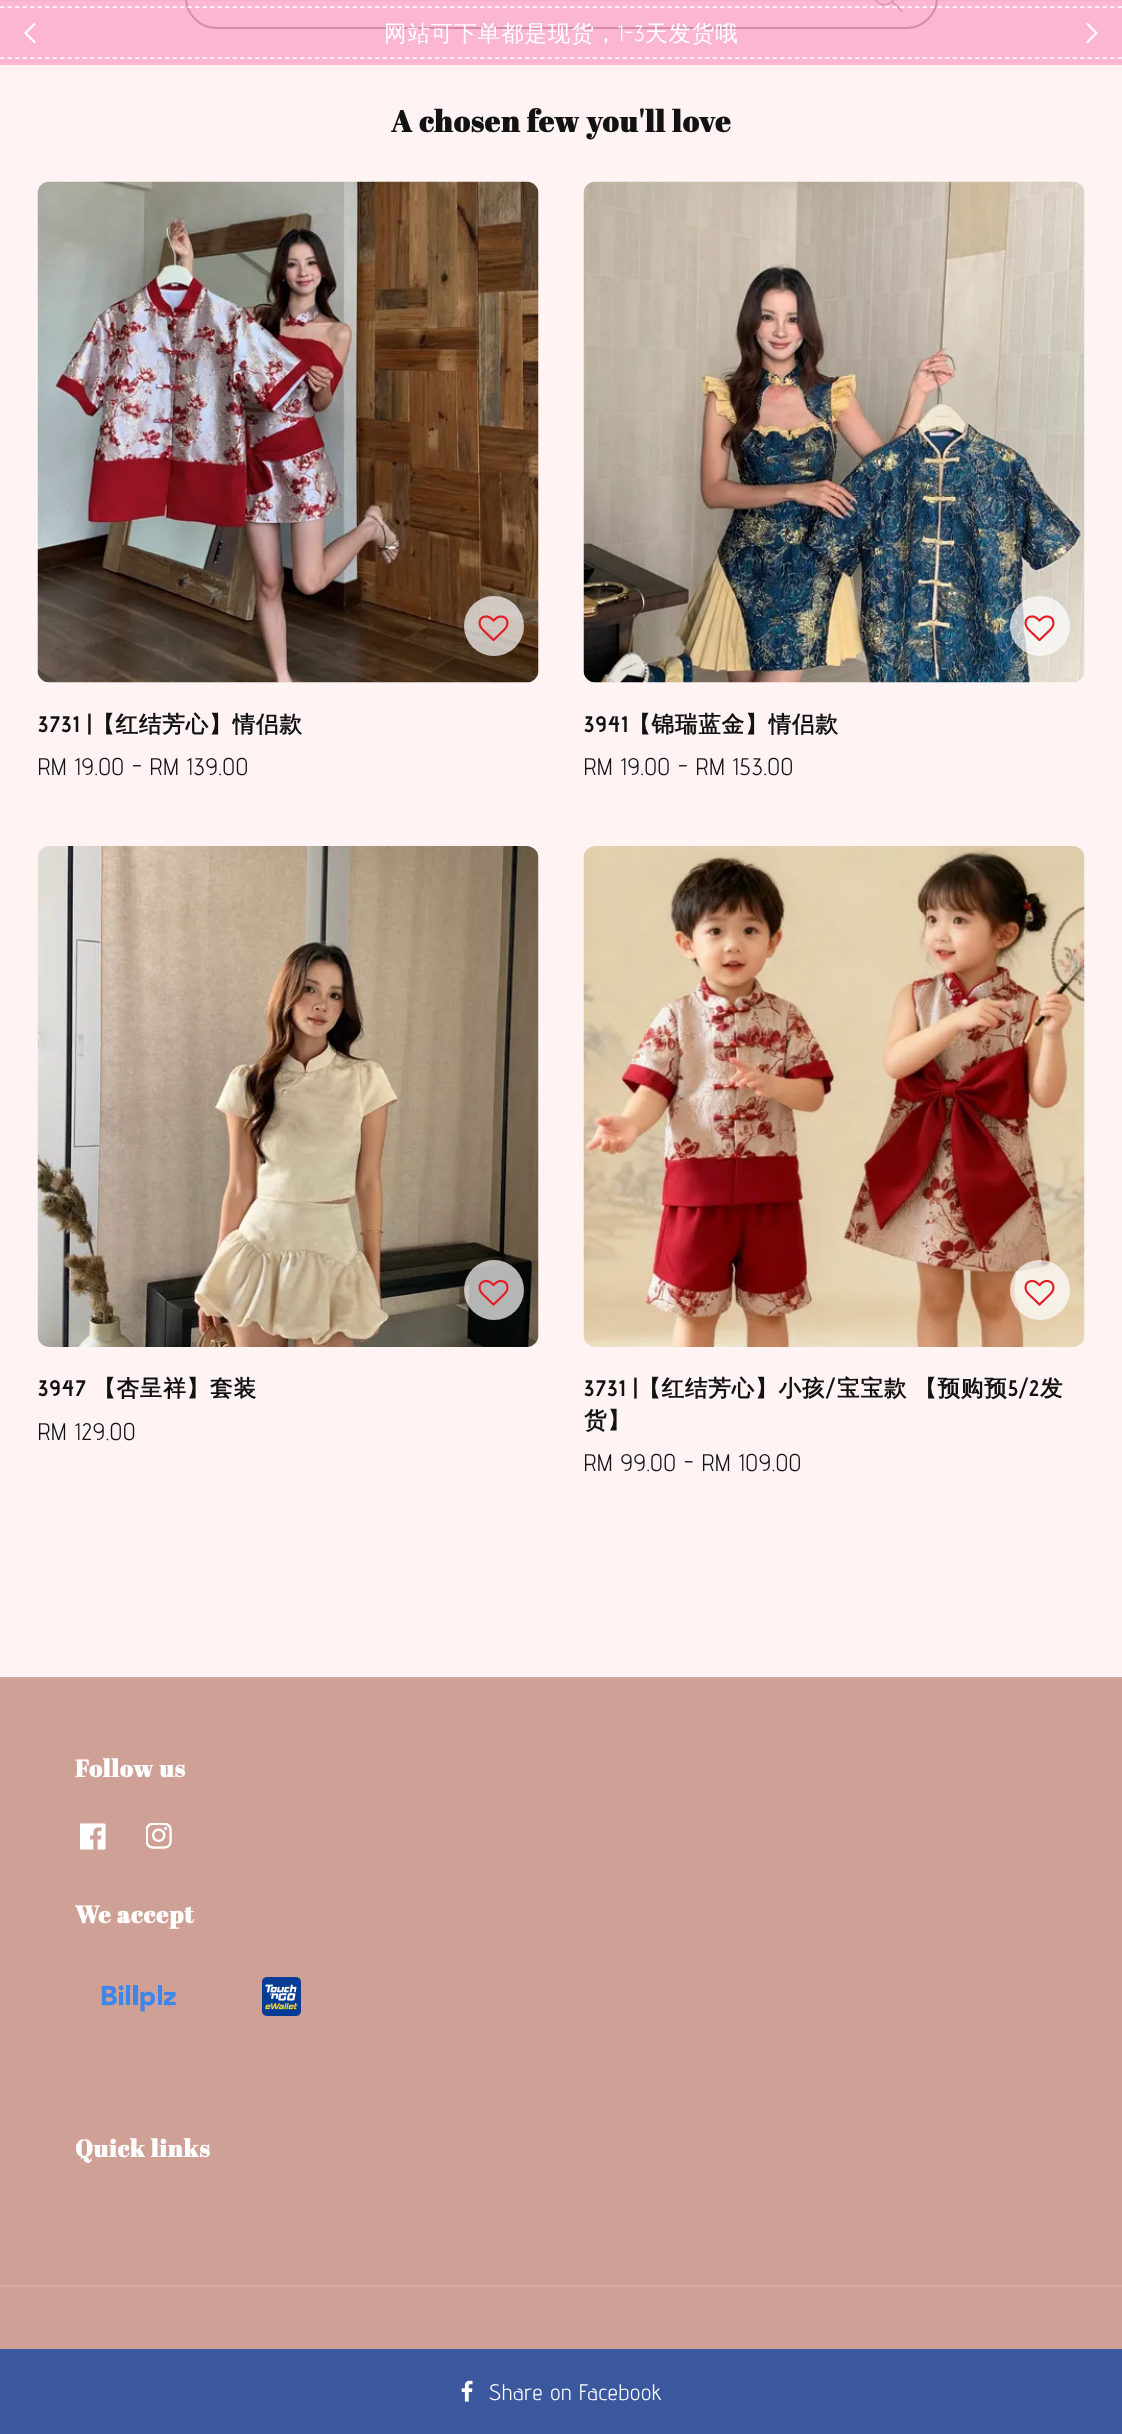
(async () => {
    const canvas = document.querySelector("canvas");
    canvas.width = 1122;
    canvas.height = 2434;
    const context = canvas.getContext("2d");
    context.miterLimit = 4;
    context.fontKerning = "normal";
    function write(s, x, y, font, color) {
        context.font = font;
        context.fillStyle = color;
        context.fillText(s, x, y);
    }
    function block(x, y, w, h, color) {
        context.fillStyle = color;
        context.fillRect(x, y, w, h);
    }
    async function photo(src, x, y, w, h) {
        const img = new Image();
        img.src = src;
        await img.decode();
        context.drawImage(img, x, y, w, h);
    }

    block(0, 0, 1122, 2434, "rgb(255, 243, 243)");
    block(0, 0, 1122, 65, "rgb(253, 182, 209)");
    context.beginPath();
    context.roundRect(186, -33, 751, 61, 30.5);
    context.strokeStyle = "rgb(210, 142, 168)";
    context.lineWidth = 2;
    context.stroke();
    await photo("media/1.png", 874, 0, 29, 13);
    block(0, 0, 1122, 1, "rgba(210, 142, 168, 0.08)");
    context.beginPath();
    context.moveTo(0, 7);
    context.lineTo(1122, 7);
    context.strokeStyle = "rgb(255, 255, 255)";
    context.lineWidth = 1.5;
    context.setLineDash([4.5, 3]);
    context.stroke();
    context.beginPath();
    context.moveTo(0, 58);
    context.lineTo(1122, 58);
    context.stroke();
    context.beginPath();
    context.moveTo(34.5, 24);
    context.lineTo(25.5, 33);
    context.lineTo(34.5, 42);
    context.lineWidth = 2.2;
    context.lineCap = "round";
    context.lineJoin = "round";
    context.setLineDash([]);
    context.stroke();
    context.letterSpacing = "0.9px";
    write("网站可下单都是现货，", 384, 41, "500 22.5px WenQuanYi Zen Hei", "rgb(255, 255, 255)");
    write("1-3", 618, 41, "22.5px Advent Pro", "rgb(255, 255, 255)");
    write("天发货哦", 645, 41, "500 22.5px WenQuanYi Zen Hei", "rgb(255, 255, 255)");
    context.beginPath();
    context.moveTo(1087.5, 24);
    context.lineTo(1096.5, 33);
    context.lineTo(1087.5, 42);
    context.stroke();
    write("A chosen few you'll love", 391, 132, "bold 30px Abril Fatface", "rgb(18, 18, 18)");
    await photo("media/2.png", 37, 181, 502, 502);
    context.fillStyle = "rgba(255, 255, 255, 0.7)";
    context.beginPath();
    context.arc(494, 626, 30, 0, Math.PI * 2);
    context.fill();
    await photo("media/3.png", 478, 615, 31, 27);
    write("3731 |", 38, 732, "bold 22.5px Advent Pro", "rgb(18, 18, 18)");
    write("【红结芳心】情侣款", 92, 732, "bold 22.5px WenQuanYi Zen Hei", "rgb(18, 18, 18)");
    write("RM 19.00 - RM 139.00", 38, 775, "24px Advent Pro", "rgb(18, 18, 18)");
    await photo("media/4.png", 583, 181, 502, 502);
    context.fillStyle = "rgba(255, 255, 255, 0.7)";
    context.beginPath();
    context.arc(1040, 626, 30, 0, Math.PI * 2);
    context.fill();
    await photo("media/5.png", 1024, 615, 31, 27);
    write("3941", 584, 732, "bold 22.5px Advent Pro", "rgb(18, 18, 18)");
    write("【锦瑞蓝金】情侣款", 628, 732, "bold 22.5px WenQuanYi Zen Hei", "rgb(18, 18, 18)");
    write("RM 19.00 - RM 153.00", 584, 775, "24px Advent Pro", "rgb(18, 18, 18)");
    await photo("media/6.png", 37, 846, 502, 501);
    context.fillStyle = "rgba(255, 255, 255, 0.7)";
    context.beginPath();
    context.arc(494, 1290, 30, 0, Math.PI * 2);
    context.fill();
    await photo("media/7.png", 478, 1279, 31, 27);
    write("3947", 38, 1396, "bold 22.5px Advent Pro", "rgb(18, 18, 18)");
    write("【杏呈祥】套装", 93, 1396, "bold 22.5px WenQuanYi Zen Hei", "rgb(18, 18, 18)");
    write("RM 129.00", 38, 1440, "24px Advent Pro", "rgb(18, 18, 18)");
    await photo("media/8.png", 583, 846, 502, 501);
    context.fillStyle = "rgba(255, 255, 255, 0.7)";
    context.beginPath();
    context.arc(1040, 1290, 30, 0, Math.PI * 2);
    context.fill();
    await photo("media/9.png", 1024, 1279, 31, 27);
    write("3731 |", 584, 1396, "bold 22.5px Advent Pro", "rgb(18, 18, 18)");
    write("【红结芳心】小孩", 638, 1396, "bold 22.5px WenQuanYi Zen Hei", "rgb(18, 18, 18)");
    write("/", 825, 1396, "bold 22.5px Advent Pro", "rgb(18, 18, 18)");
    write("宝宝款", 837, 1396, "bold 22.5px WenQuanYi Zen Hei", "rgb(18, 18, 18)");
    write("【预购预", 914, 1396, "bold 22.5px WenQuanYi Zen Hei", "rgb(18, 18, 18)");
    write("5/2", 1008, 1396, "bold 22.5px Advent Pro", "rgb(18, 18, 18)");
    write("发", 1040, 1396, "bold 22.5px WenQuanYi Zen Hei", "rgb(18, 18, 18)");
    write("货】", 584, 1428, "bold 22.5px WenQuanYi Zen Hei", "rgb(18, 18, 18)");
    write("RM 99.00 - RM 109.00", 584, 1471, "24px Advent Pro", "rgb(18, 18, 18)");
    block(0, 1679, 1122, 670, "rgb(207, 160, 149)");
    block(0, 1677, 1122, 2, "rgb(211, 168, 157)");
    write("Follow us", 75, 1777, "bold 24px Abril Fatface", "rgb(255, 255, 255)");
    await photo("media/10.png", 80, 1823, 26, 27);
    await photo("media/11.png", 146, 1823, 26, 26);
    write("We accept", 75, 1923, "bold 24px Abril Fatface", "rgb(255, 255, 255)");
    await photo("media/12.png", 101, 1985, 75, 27);
    await photo("media/13.png", 262, 1977, 39, 39);
    write("Quick links", 75, 2157, "bold 24px Abril Fatface", "rgb(255, 255, 255)");
    block(0, 2285, 1122, 2, "rgb(214, 174, 165)");
    block(0, 2349, 1122, 85, "rgb(59, 87, 157)");
    await photo("media/14.png", 461, 2380, 12, 22);
    write("Share on Facebook", 489, 2400, "22.5px Advent Pro", "rgb(255, 255, 255)");
})();
